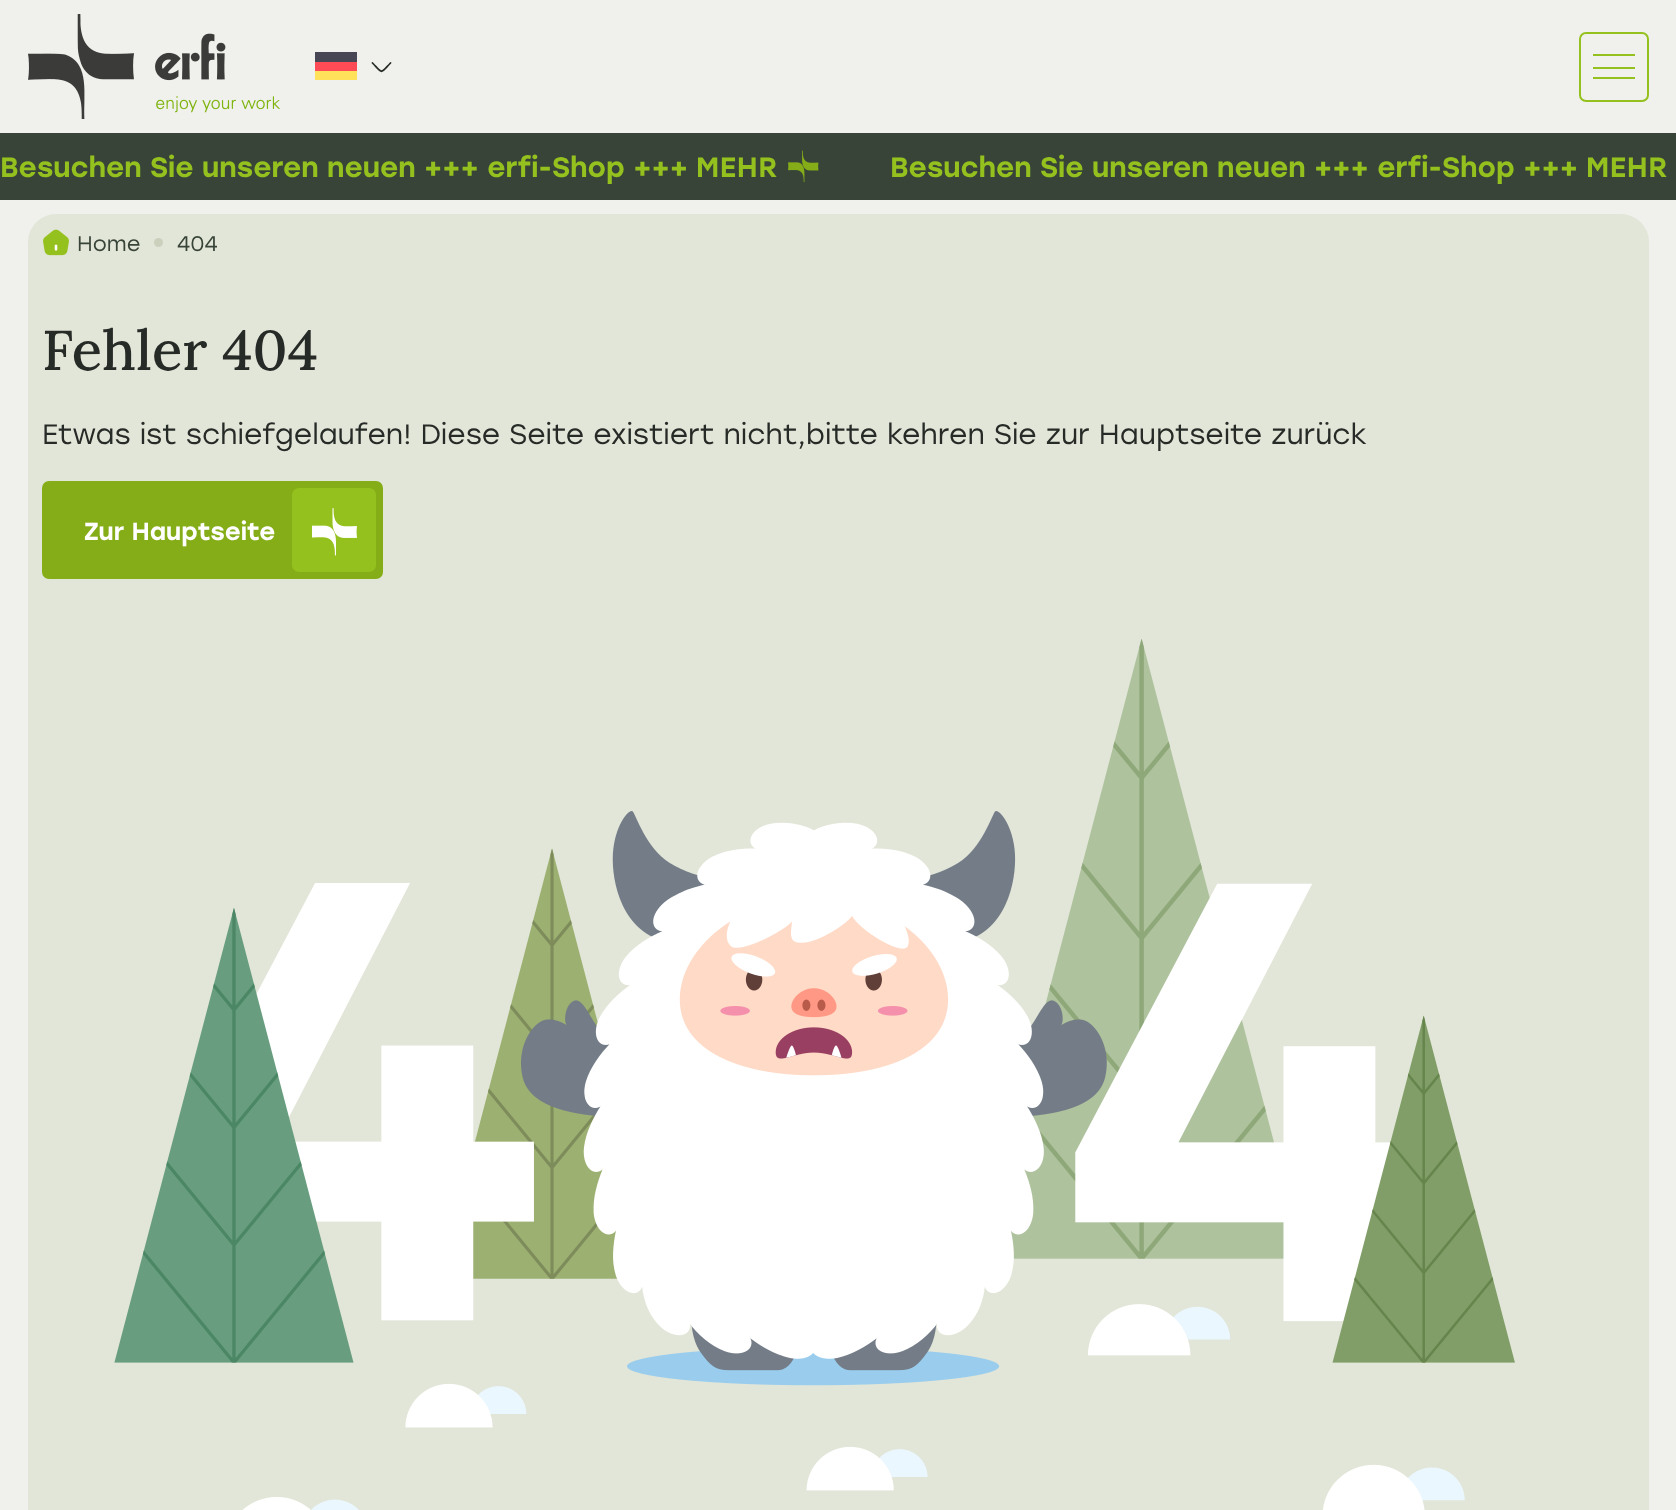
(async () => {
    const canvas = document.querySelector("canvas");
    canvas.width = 1676;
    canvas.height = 1510;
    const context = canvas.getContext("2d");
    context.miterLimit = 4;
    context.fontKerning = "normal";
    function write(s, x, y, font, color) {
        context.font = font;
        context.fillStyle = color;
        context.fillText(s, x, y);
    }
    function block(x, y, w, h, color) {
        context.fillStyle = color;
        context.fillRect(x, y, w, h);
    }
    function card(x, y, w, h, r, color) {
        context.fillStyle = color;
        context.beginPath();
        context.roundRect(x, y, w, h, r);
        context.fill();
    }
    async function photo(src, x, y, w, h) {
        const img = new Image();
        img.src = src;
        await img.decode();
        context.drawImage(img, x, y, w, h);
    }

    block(0, 0, 1676, 1510, "rgb(240, 241, 237)");
    await photo("media/1.png", 28, 14, 252, 105);
    block(315, 62, 42, 9, "rgb(255, 75, 85)");
    block(315, 71, 42, 9, "rgb(255, 225, 90)");
    block(315, 52, 42, 10, "rgb(70, 70, 85)");
    context.beginPath();
    context.moveTo(390.5, 63);
    context.bezierCurveTo(380, 74, 383, 74, 372.5, 63);
    context.strokeStyle = "rgb(39, 43, 39)";
    context.lineWidth = 1.8;
    context.lineCap = "round";
    context.lineJoin = "round";
    context.stroke();
    context.beginPath();
    context.roundRect(1580, 33, 68, 68, 6);
    context.strokeStyle = "rgb(149, 193, 31)";
    context.lineWidth = 2;
    context.lineJoin = "miter";
    context.stroke();
    block(1593, 54, 42, 2, "rgb(149, 193, 31)");
    block(1593, 67, 42, 2, "rgb(149, 193, 31)");
    block(1593, 77, 42, 2, "rgb(149, 193, 31)");
    block(0, 133, 1676, 67, "rgb(56, 68, 56)");
    write("Besuchen Sie unseren neuen +++ erfi-Shop +++", 0, 177, "500 28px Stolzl", "rgb(149, 193, 31)");
    context.letterSpacing = "0.5px";
    write("MEHR", 696, 177, "500 28px Stolzl", "rgb(149, 193, 31)");
    await photo("media/2.png", 788, 150, 31, 33);
    context.letterSpacing = "0px";
    write("Besuchen Sie unseren neuen +++ erfi-Shop +++", 890, 177, "500 28px Stolzl", "rgb(149, 193, 31)");
    context.letterSpacing = "0.5px";
    write("MEHR", 1586, 177, "500 28px Stolzl", "rgb(149, 193, 31)");
    card(28, 214, 1621, 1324, 28, "rgb(226, 230, 216)");
    await photo("media/3.png", 43, 229, 26, 27);
    context.letterSpacing = "0px";
    write("Home", 77, 251, "21px Stolzl", "rgb(56, 68, 56)");
    context.fillStyle = "rgb(203, 208, 189)";
    context.beginPath();
    context.arc(158.5, 242.5, 4.5, 0, Math.PI * 2);
    context.fill();
    write("404", 177, 251, "21px Stolzl", "rgb(56, 68, 56)");
    write("Fehler 404", 42, 370, "500 56px Lora", "rgb(39, 43, 39)");
    context.wordSpacing = "0.75px";
    write("Etwas ist schiefgelaufen! Diese Seite existiert nicht,bitte kehren Sie zur Hauptseite zurück", 42, 444, "28px Stolzl", "rgb(39, 43, 39)");
    card(42, 481, 341, 98, 7, "rgb(133, 173, 24)");
    context.wordSpacing = "0px";
    write("Zur Hauptseite", 84, 540, "500 24.5px Stolzl", "rgb(255, 255, 255)");
    card(292, 488, 84, 84, 7, "rgb(149, 193, 31)");
    await photo("media/4.png", 312, 508, 45, 48);
    await photo("media/5.png", 114, 639, 1401, 871);
})();
